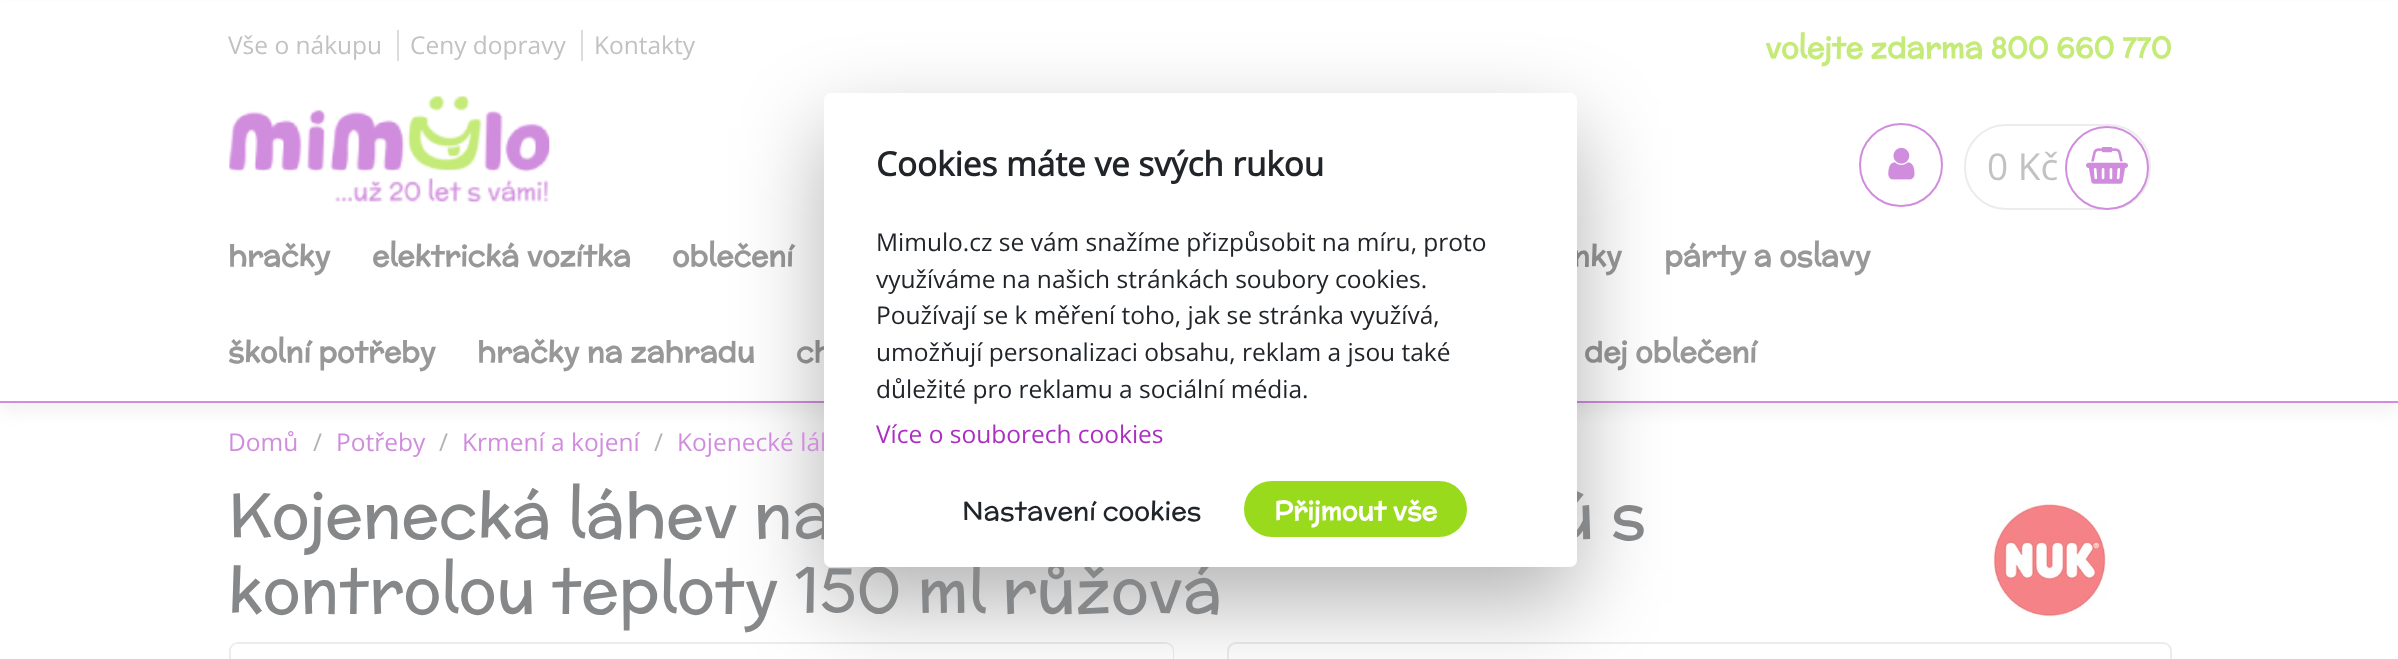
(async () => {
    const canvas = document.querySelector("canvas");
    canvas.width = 2398;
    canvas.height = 659;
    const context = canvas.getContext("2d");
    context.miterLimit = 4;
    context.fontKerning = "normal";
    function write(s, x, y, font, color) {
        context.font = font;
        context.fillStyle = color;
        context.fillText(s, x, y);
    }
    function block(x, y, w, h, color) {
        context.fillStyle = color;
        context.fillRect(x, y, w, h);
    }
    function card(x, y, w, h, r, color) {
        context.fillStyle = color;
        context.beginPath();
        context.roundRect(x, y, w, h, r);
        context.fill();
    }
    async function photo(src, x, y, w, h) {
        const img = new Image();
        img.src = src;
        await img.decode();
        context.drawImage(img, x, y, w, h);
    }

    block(0, 0, 2398, 659, "rgb(255, 255, 255)");
    context.fillStyle = "rgba(236, 236, 236, 0.73)";
    context.filter = "blur(9px)";
    context.beginPath();
    context.rect(0, 9, 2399, 402);
    context.fill();
    context.filter = "none";
    block(0, 1, 2398, 400, "rgb(255, 255, 255)");
    block(0, 401, 2398, 2, "rgb(209, 141, 221)");
    write("Vše o nákupu", 228, 54, "24.5px Open Sans", "rgb(194, 194, 194)");
    block(397, 30, 2, 31, "rgb(220, 220, 220)");
    write("Ceny dopravy", 410, 54, "24.5px Open Sans", "rgb(194, 194, 194)");
    block(581, 30, 2, 31, "rgb(220, 220, 220)");
    write("Kontakty", 594, 54, "24.5px Open Sans", "rgb(194, 194, 194)");
    write("volejte zdarma 800 660 770", 1765, 58, "bold 29.4px McLaren", "rgb(196, 234, 120)");
    await photo("media/1.png", 229, 96, 321, 107);
    context.beginPath();
    context.arc(1901, 165, 41, 0, Math.PI * 2);
    context.strokeStyle = "rgb(209, 141, 221)";
    context.lineWidth = 2;
    context.stroke();
    await photo("media/2.png", 1888, 147, 27, 33);
    context.beginPath();
    context.roundRect(1965, 125, 185, 84, 41);
    context.strokeStyle = "rgb(236, 236, 236)";
    context.stroke();
    write("0 Kč", 1987, 180, "37px Open Sans", "rgb(194, 194, 194)");
    context.fillStyle = "rgb(255, 255, 255)";
    context.beginPath();
    context.arc(2107, 168, 41, 0, Math.PI * 2);
    context.fill();
    context.strokeStyle = "rgb(209, 141, 221)";
    context.stroke();
    await photo("media/3.png", 2086, 147, 42, 37);
    write("hračky", 228, 266, "bold 29px McLaren", "rgb(152, 152, 152)");
    write("elektrická vozítka", 372, 266, "bold 29px McLaren", "rgb(152, 152, 152)");
    write("oblečení", 672, 266, "bold 29px McLaren", "rgb(152, 152, 152)");
    write("nky", 1572, 266, "bold 29px McLaren", "rgb(152, 152, 152)");
    write("párty a oslavy", 1664, 266, "bold 29px McLaren", "rgb(152, 152, 152)");
    write("školní potřeby", 228, 362, "bold 29px McLaren", "rgb(152, 152, 152)");
    write("hračky na zahradu", 477, 362, "bold 29px McLaren", "rgb(152, 152, 152)");
    write("ch", 796, 362, "bold 29px McLaren", "rgb(152, 152, 152)");
    write("dej oblečení", 1584, 362, "bold 29px McLaren", "rgb(152, 152, 152)");
    context.beginPath();
    context.roundRect(230, 643, 943, 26, 8);
    context.strokeStyle = "rgb(236, 236, 236)";
    context.stroke();
    card(231, 644, 942, 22, 7, "rgb(255, 255, 255)");
    await photo("media/5.png", 231, 644, 938, 5);
    context.beginPath();
    context.roundRect(1228, 643, 943, 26, 8);
    context.stroke();
    context.fillStyle = "rgba(0, 0, 0, 0.3)";
    context.filter = "blur(44px)";
    context.beginPath();
    context.roundRect(824, 128, 753, 474, 7);
    context.fill();
    context.filter = "none";
    write("Kojenecké láh", 677, 451, "24.5px Open Sans", "rgb(209, 141, 221)");
    write("Kojenecká láhev na", 228, 537, "63px McLaren", "rgb(133, 135, 137)");
    write("ú s", 1555, 537, "63px McLaren", "rgb(133, 135, 137)");
    write("kontrolou teploty 150 ml růžová", 228, 612, "63px McLaren", "rgb(133, 135, 137)");
    card(824, 93, 753, 474, 7, "rgb(255, 255, 255)");
    write("Cookies máte ve svých rukou", 876, 176, "bold 33.25px Open Sans", "rgb(33, 37, 41)");
    write("Mimulo.cz se vám snažíme přizpůsobit na míru, proto", 876, 251, "24.5px Open Sans", "rgb(33, 37, 41)");
    write("využíváme na našich stránkách soubory cookies.", 876, 288, "24.5px Open Sans", "rgb(33, 37, 41)");
    write("Používají se k měření toho, jak se stránka využívá,", 876, 324, "24.5px Open Sans", "rgb(33, 37, 41)");
    write("umožňují personalizaci obsahu, reklam a jsou také", 876, 361, "24.5px Open Sans", "rgb(33, 37, 41)");
    write("důležité pro reklamu a sociální média.", 876, 398, "24.5px Open Sans", "rgb(33, 37, 41)");
    write("Více o souborech cookies", 876, 443, "24.5px Open Sans", "rgb(171, 48, 193)");
    write("Nastavení cookies", 962, 520, "26.25px McLaren", "rgb(33, 37, 41)");
    context.fillStyle = "rgb(154, 218, 28)";
    context.beginPath();
    context.roundRect(1245, 482, 221, 54, 27);
    context.fill();
    context.strokeStyle = "rgb(154, 218, 28)";
    context.stroke();
    write("Přijmout vše", 1274, 520, "bold 26.25px McLaren", "rgb(255, 255, 255)");
    write("Domů", 228, 451, "24.5px Open Sans", "rgb(209, 141, 221)");
    write("/", 313, 451, "24.5px Open Sans", "rgb(174, 179, 184)");
    write("Potřeby", 336, 451, "24.5px Open Sans", "rgb(209, 141, 221)");
    write("/", 439, 451, "24.5px Open Sans", "rgb(174, 179, 184)");
    write("Krmení a kojení", 462, 451, "24.5px Open Sans", "rgb(209, 141, 221)");
    write("/", 654, 451, "24.5px Open Sans", "rgb(174, 179, 184)");
    await photo("media/4.png", 1993, 499, 113, 121);
})();
